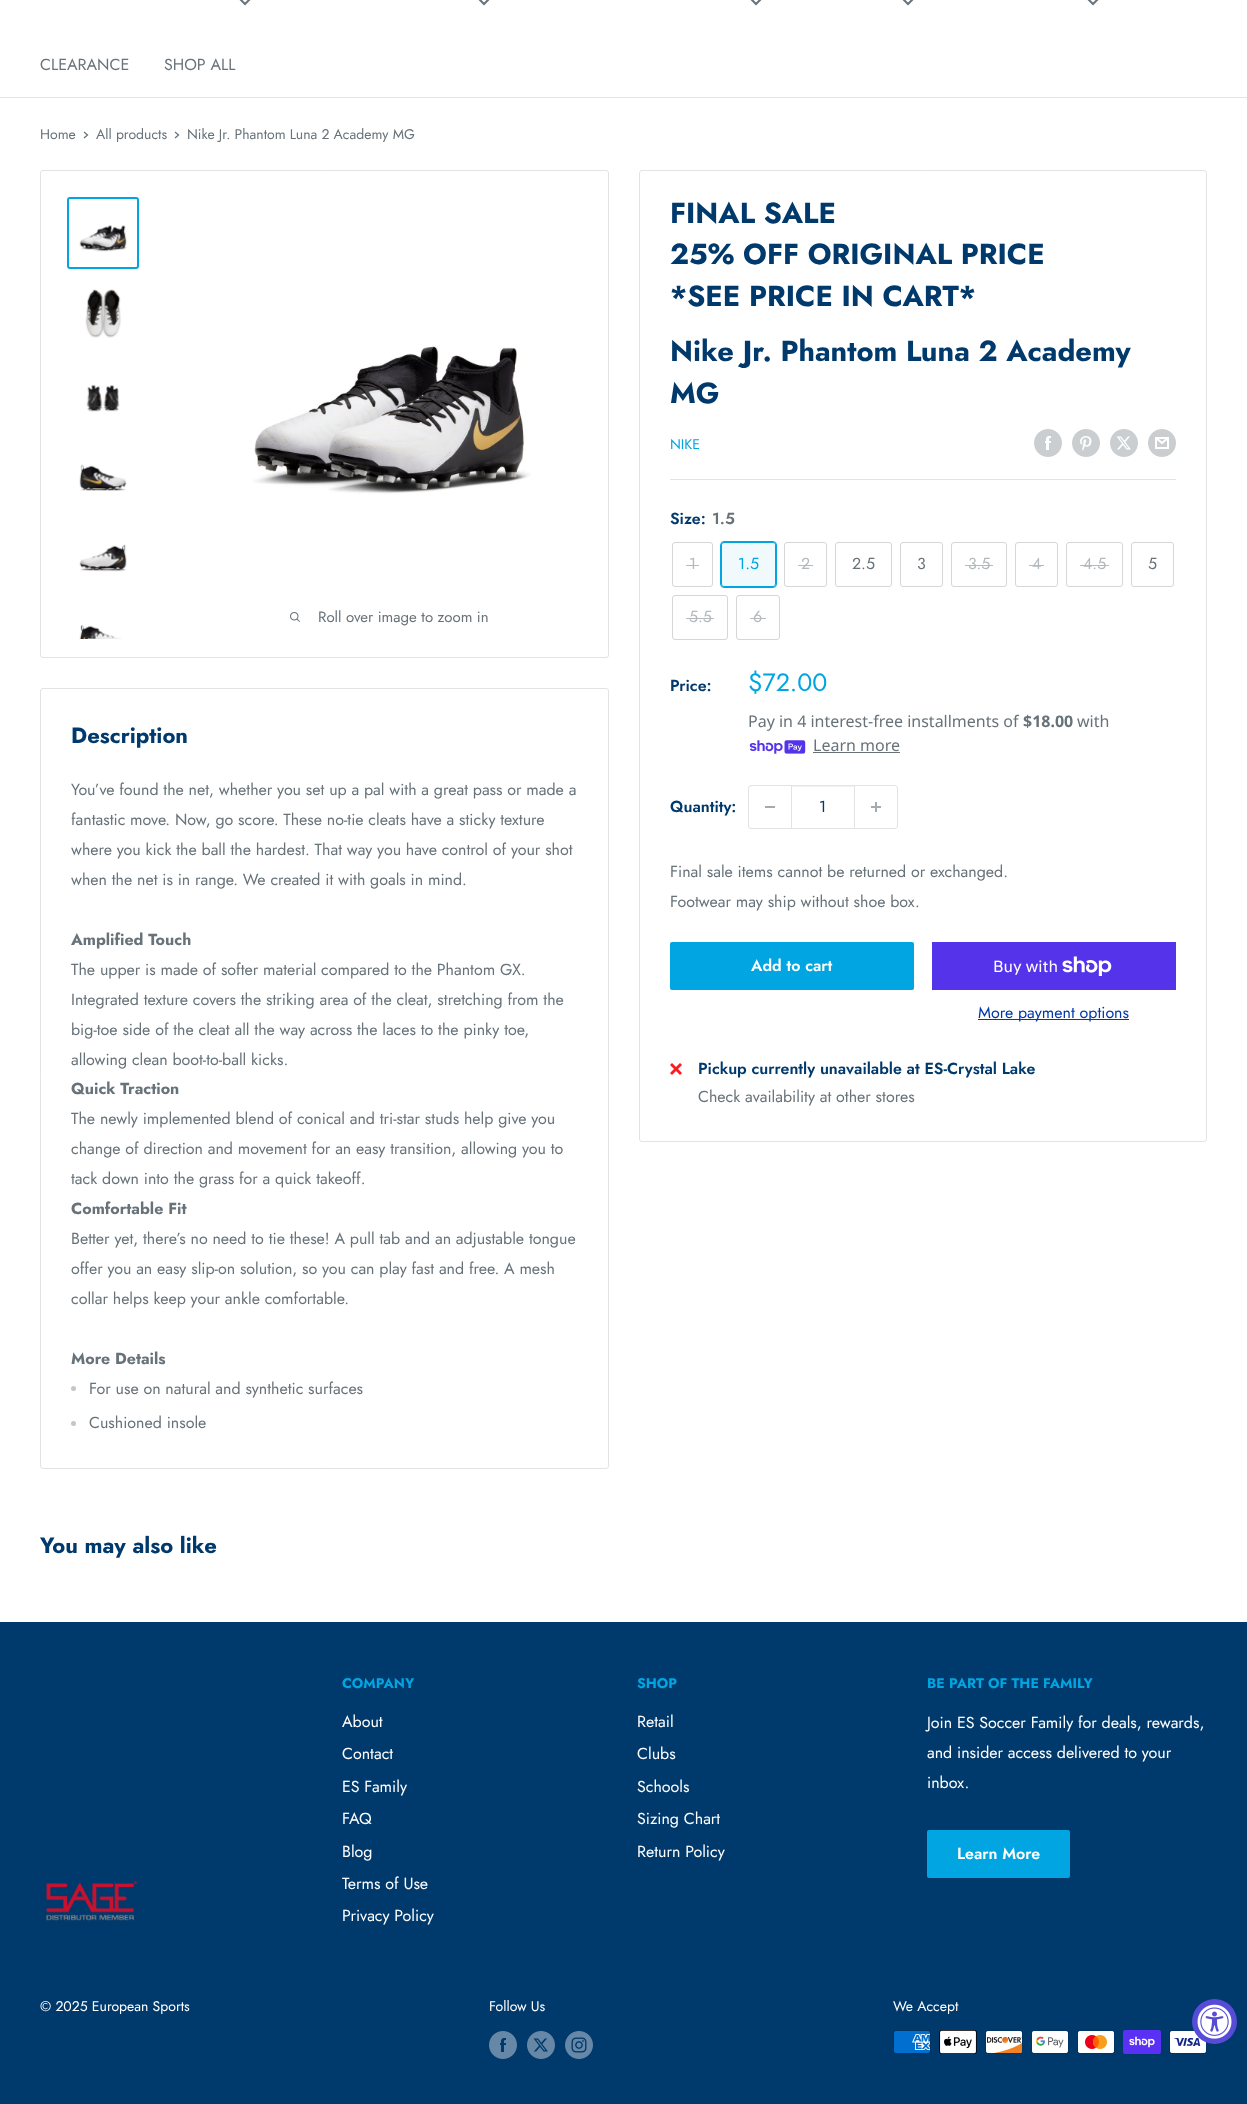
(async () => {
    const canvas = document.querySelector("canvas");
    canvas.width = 1247;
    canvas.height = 2104;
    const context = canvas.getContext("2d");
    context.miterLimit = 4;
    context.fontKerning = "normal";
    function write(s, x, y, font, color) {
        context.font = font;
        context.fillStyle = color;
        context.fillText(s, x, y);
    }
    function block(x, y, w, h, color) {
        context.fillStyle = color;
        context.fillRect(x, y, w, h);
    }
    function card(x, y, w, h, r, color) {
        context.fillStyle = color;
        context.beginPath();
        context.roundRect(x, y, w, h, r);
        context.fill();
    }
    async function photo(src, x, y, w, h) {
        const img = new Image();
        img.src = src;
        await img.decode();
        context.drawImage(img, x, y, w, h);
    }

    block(0, 0, 1247, 2104, "rgb(255, 255, 255)");
    block(0, 97, 1247, 1, "rgb(225, 227, 228)");
    context.beginPath();
    context.moveTo(249, 0);
    context.lineTo(245, 4);
    context.lineTo(241, 0);
    context.strokeStyle = "rgb(103, 114, 121)";
    context.lineWidth = 2;
    context.lineCap = "square";
    context.stroke();
    context.beginPath();
    context.moveTo(488, 0);
    context.lineTo(484, 4);
    context.lineTo(480, 0);
    context.stroke();
    context.beginPath();
    context.moveTo(760, 0);
    context.lineTo(756, 4);
    context.lineTo(752, 0);
    context.stroke();
    context.beginPath();
    context.moveTo(912, 0);
    context.lineTo(908, 4);
    context.lineTo(904, 0);
    context.stroke();
    context.beginPath();
    context.moveTo(1097, 0);
    context.lineTo(1093, 4);
    context.lineTo(1089, 0);
    context.stroke();
    write("CLEARANCE", 40, 70, "16px Jost", "rgb(103, 114, 121)");
    write("SHOP ALL", 164, 70, "16px Jost", "rgb(103, 114, 121)");
    write("Home", 40, 139, "14px Jost", "rgb(103, 114, 121)");
    context.beginPath();
    context.moveTo(84.5, 132.5);
    context.lineTo(87.5, 135);
    context.lineTo(84.5, 137.5);
    context.lineWidth = 1.3;
    context.stroke();
    write("All products", 96, 139, "14px Jost", "rgb(103, 114, 121)");
    context.beginPath();
    context.moveTo(175.5, 132.5);
    context.lineTo(178.5, 135);
    context.lineTo(175.5, 137.5);
    context.stroke();
    write("Nike Jr. Phantom Luna 2 Academy MG", 187, 139, "14px Jost", "rgb(103, 114, 121)");
    context.beginPath();
    context.roundRect(40.5, 170.5, 568, 487, 2.5);
    context.strokeStyle = "rgb(225, 227, 228)";
    context.lineWidth = 1;
    context.stroke();
    context.beginPath();
    context.roundRect(68, 198, 70, 70, 2);
    context.strokeStyle = "rgb(0, 165, 225)";
    context.lineWidth = 2;
    context.stroke();
    await photo("media/1.png", 79, 225, 48, 27);
    await photo("media/2.png", 85, 289, 36, 49);
    await photo("media/3.png", 86, 384, 34, 28);
    await photo("media/4.png", 79, 464, 48, 27);
    await photo("media/5.png", 79, 544, 48, 28);
    await photo("media/6.png", 79, 624, 43, 15);
    await photo("media/7.png", 253, 345, 278, 149);
    await photo("media/8.png", 290, 612, 10, 10);
    write("Roll over image to zoom in", 318, 622, "15px Jost", "rgb(103, 114, 121)");
    context.beginPath();
    context.roundRect(639.5, 170.5, 567, 971, 2.5);
    context.strokeStyle = "rgb(225, 227, 228)";
    context.lineWidth = 1;
    context.stroke();
    write("FINAL SALE", 670, 223, "bold 29px Jost", "rgb(0, 57, 107)");
    write("25% OFF ORIGINAL PRICE", 670, 264, "bold 29px Jost", "rgb(0, 57, 107)");
    write("*SEE PRICE IN CART*", 670, 306, "bold 29px Jost", "rgb(0, 57, 107)");
    write("Nike Jr. Phantom Luna 2 Academy", 670, 361, "bold 29px Jost", "rgb(0, 57, 107)");
    write("MG", 670, 403, "bold 29px Jost", "rgb(0, 57, 107)");
    write("NIKE", 670, 449, "14px Jost", "rgb(0, 165, 225)");
    await photo("media/9.png", 1034, 429, 28, 28);
    await photo("media/10.png", 1072, 429, 28, 28);
    await photo("media/11.png", 1110, 429, 28, 28);
    await photo("media/12.png", 1148, 429, 28, 28);
    block(670, 479, 506, 1, "rgb(225, 227, 228)");
    write("Size:", 670, 524, "600 16px Jost", "rgb(0, 57, 107)");
    write("1.5", 712, 524, "600 16px Jost", "rgb(103, 114, 121)");
    context.beginPath();
    context.roundRect(672.5, 542.5, 40, 44, 2.5);
    context.strokeStyle = "rgb(212, 214, 216)";
    context.stroke();
    write("1", 689, 569, "16px Jost", "rgb(179, 185, 188)");
    block(686, 565, 13, 1, "rgb(179, 185, 188)");
    context.beginPath();
    context.roundRect(720.5, 541.5, 56, 46, 3.5);
    context.strokeStyle = "rgb(0, 165, 225)";
    context.stroke();
    block(721, 542, 55, 45, "rgba(0, 165, 225, 0.06)");
    context.beginPath();
    context.roundRect(721.5, 542.5, 54, 44, 2.5);
    context.stroke();
    write("1.5", 738, 569, "16px Jost", "rgb(0, 165, 225)");
    context.beginPath();
    context.roundRect(784.5, 542.5, 42, 44, 2.5);
    context.strokeStyle = "rgb(212, 214, 216)";
    context.stroke();
    write("2", 801, 569, "16px Jost", "rgb(179, 185, 188)");
    block(798, 565, 15, 1, "rgb(179, 185, 188)");
    context.beginPath();
    context.roundRect(835.5, 542.5, 56, 44, 2.5);
    context.stroke();
    write("2.5", 852, 569, "16px Jost", "rgb(103, 114, 121)");
    context.beginPath();
    context.roundRect(900.5, 542.5, 42, 44, 2.5);
    context.stroke();
    write("3", 917, 569, "16px Jost", "rgb(103, 114, 121)");
    context.beginPath();
    context.roundRect(951.5, 542.5, 55, 44, 2.5);
    context.stroke();
    write("3.5", 968, 569, "16px Jost", "rgb(179, 185, 188)");
    block(965, 565, 28, 1, "rgb(179, 185, 188)");
    context.beginPath();
    context.roundRect(1015.5, 542.5, 42, 44, 2.5);
    context.stroke();
    write("4", 1032, 569, "16px Jost", "rgb(179, 185, 188)");
    block(1029, 565, 15, 1, "rgb(179, 185, 188)");
    context.beginPath();
    context.roundRect(1066.5, 542.5, 56, 44, 2.5);
    context.stroke();
    write("4.5", 1083, 569, "16px Jost", "rgb(179, 185, 188)");
    block(1080, 565, 29, 1, "rgb(179, 185, 188)");
    context.beginPath();
    context.roundRect(1131.5, 542.5, 42, 44, 2.5);
    context.stroke();
    write("5", 1148, 569, "16px Jost", "rgb(103, 114, 121)");
    context.beginPath();
    context.roundRect(672.5, 595.5, 55, 44, 2.5);
    context.stroke();
    write("5.5", 689, 622, "16px Jost", "rgb(179, 185, 188)");
    block(686, 618, 28, 1, "rgb(179, 185, 188)");
    context.beginPath();
    context.roundRect(736.5, 595.5, 43, 44, 2.5);
    context.stroke();
    write("6", 753, 622, "16px Jost", "rgb(179, 185, 188)");
    block(750, 618, 16, 1, "rgb(179, 185, 188)");
    write("Price:", 670, 691, "600 16px Jost", "rgb(0, 57, 107)");
    write("$72.00", 748, 691, "25px Jost", "rgb(0, 165, 225)");
    write("Pay in 4 interest-free installments of", 748, 727, "16px Noto Sans", "rgb(103, 114, 121)");
    write("$18.00", 1023, 727, "bold 16px Noto Sans", "rgb(103, 114, 121)");
    write("with", 1077, 727, "16px Noto Sans", "rgb(103, 114, 121)");
    await photo("media/13.png", 749, 740, 57, 14);
    write("Learn more", 813, 751, "16px Noto Sans", "rgb(103, 114, 121)");
    block(813, 752, 87, 1, "rgb(103, 114, 121)");
    write("Quantity:", 670, 812, "600 16px Jost", "rgb(0, 57, 107)");
    context.beginPath();
    context.roundRect(748.5, 785.5, 149, 43, 2.5);
    context.strokeStyle = "rgb(225, 227, 228)";
    context.stroke();
    block(765, 806, 10, 2, "rgb(164, 170, 175)");
    block(792, 786, 62, 1, "rgb(243, 244, 244)");
    block(854, 786, 1, 42, "rgb(225, 227, 228)");
    block(791, 786, 1, 42, "rgb(225, 227, 228)");
    write("1", 819, 812, "16px Jost", "rgb(0, 57, 107)");
    await photo("media/14.png", 871, 802, 10, 10);
    write("Final sale items cannot be returned or exchanged.", 670, 877, "16px Jost", "rgb(103, 114, 121)");
    write("Footwear may ship without shoe box.", 670, 907, "16px Jost", "rgb(103, 114, 121)");
    card(670, 942, 244, 48, 2, "rgb(0, 165, 225)");
    write("Add to cart", 751, 971, "600 16px Jost", "rgb(255, 255, 255)");
    block(932, 942, 244, 48, "rgb(84, 51, 235)");
    write("Buy with", 993, 972, "16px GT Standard", "rgb(255, 255, 255)");
    await photo("media/15.png", 1062, 956, 50, 20);
    block(978, 1019, 151, 1, "rgb(0, 57, 168)");
    write("More payment options", 978, 1018, "16px Jost", "rgb(0, 57, 168)");
    await photo("media/16.png", 670, 1063, 12, 12);
    write("Pickup currently unavailable at ES-Crystal Lake", 698, 1074, "600 16px Jost", "rgb(0, 57, 107)");
    write("Check availability at other stores", 698, 1102, "16px Jost", "rgb(103, 114, 121)");
    context.beginPath();
    context.roundRect(40.5, 688.5, 568, 780, 2.5);
    context.stroke();
    write("Description", 71, 743, "bold 22px Jost", "rgb(0, 57, 107)");
    write("You’ve found the net, whether you set up a pal with a great pass or made a", 71, 795, "16px Jost", "rgb(103, 114, 121)");
    write("fantastic move. Now, go score. These no-tie cleats have a sticky texture", 71, 825, "16px Jost", "rgb(103, 114, 121)");
    write("where you kick the ball the hardest. That way you have control of your shot", 71, 855, "16px Jost", "rgb(103, 114, 121)");
    write("when the net is in range. We created it with goals in mind.", 71, 885, "16px Jost", "rgb(103, 114, 121)");
    write("Amplified Touch", 71, 945, "bold 16px Jost", "rgb(103, 114, 121)");
    write("The upper is made of softer material compared to the Phantom GX.", 71, 975, "16px Jost", "rgb(103, 114, 121)");
    write("Integrated texture covers the striking area of the cleat, stretching from the", 71, 1005, "16px Jost", "rgb(103, 114, 121)");
    write("big-toe side of the cleat all the way across the laces to the pinky toe,", 71, 1035, "16px Jost", "rgb(103, 114, 121)");
    write("allowing clean boot-to-ball kicks.", 71, 1065, "16px Jost", "rgb(103, 114, 121)");
    write("Quick Traction", 71, 1094, "bold 16px Jost", "rgb(103, 114, 121)");
    write("The newly implemented blend of conical and tri-star studs help give you", 71, 1124, "16px Jost", "rgb(103, 114, 121)");
    write("change of direction and movement for an easy transition, allowing you to", 71, 1154, "16px Jost", "rgb(103, 114, 121)");
    write("tack down into the grass for a quick takeoff.", 71, 1184, "16px Jost", "rgb(103, 114, 121)");
    write("Comfortable Fit", 71, 1214, "bold 16px Jost", "rgb(103, 114, 121)");
    write("Better yet, there’s no need to tie these! A pull tab and an adjustable tongue", 71, 1244, "16px Jost", "rgb(103, 114, 121)");
    write("offer you an easy slip-on solution, so you can play fast and free. A mesh", 71, 1274, "16px Jost", "rgb(103, 114, 121)");
    write("collar helps keep your ankle comfortable.", 71, 1304, "16px Jost", "rgb(103, 114, 121)");
    write("More Details", 71, 1364, "bold 16px Jost", "rgb(103, 114, 121)");
    context.fillStyle = "rgb(194, 199, 201)";
    context.beginPath();
    context.arc(73.5, 1388.5, 2.5, 0, Math.PI * 2);
    context.fill();
    write("For use on natural and synthetic surfaces", 89, 1394, "16px Jost", "rgb(103, 114, 121)");
    context.fillStyle = "rgb(194, 199, 201)";
    context.beginPath();
    context.arc(73.5, 1423.5, 2.5, 0, Math.PI * 2);
    context.fill();
    write("Cushioned insole", 89, 1428, "16px Jost", "rgb(103, 114, 121)");
    write("You may also like", 40, 1553, "bold 22px Jost", "rgb(0, 57, 107)");
    block(0, 1622, 1247, 482, "rgb(0, 57, 107)");
    write("COMPANY", 342, 1688, "bold 14px Jost", "rgb(0, 165, 225)");
    write("About", 342, 1727, "16px Jost", "rgb(255, 255, 255)");
    write("Contact", 342, 1759, "16px Jost", "rgb(255, 255, 255)");
    write("ES Family", 342, 1792, "16px Jost", "rgb(255, 255, 255)");
    write("FAQ", 342, 1824, "16px Jost", "rgb(255, 255, 255)");
    write("Blog", 342, 1857, "16px Jost", "rgb(255, 255, 255)");
    write("Terms of Use", 342, 1889, "16px Jost", "rgb(255, 255, 255)");
    write("Privacy Policy", 342, 1921, "16px Jost", "rgb(255, 255, 255)");
    write("SHOP", 637, 1688, "bold 14px Jost", "rgb(0, 165, 225)");
    write("Retail", 637, 1727, "16px Jost", "rgb(255, 255, 255)");
    write("Clubs", 637, 1759, "16px Jost", "rgb(255, 255, 255)");
    write("Schools", 637, 1792, "16px Jost", "rgb(255, 255, 255)");
    write("Sizing Chart", 637, 1824, "16px Jost", "rgb(255, 255, 255)");
    write("Return Policy", 637, 1857, "16px Jost", "rgb(255, 255, 255)");
    write("BE PART OF THE FAMILY", 927, 1688, "bold 14px Jost", "rgb(0, 165, 225)");
    write("Join ES Soccer Family for deals, rewards,", 927, 1728, "16px Jost", "rgb(255, 255, 255)");
    write("and insider access delivered to your", 927, 1758, "16px Jost", "rgb(255, 255, 255)");
    write("inbox.", 927, 1788, "16px Jost", "rgb(255, 255, 255)");
    card(927, 1830, 143, 48, 2, "rgb(0, 165, 225)");
    write("Learn More", 957, 1859, "600 16px Jost", "rgb(255, 255, 255)");
    await photo("media/17.png", 46, 1880, 91, 41);
    write("© 2025 European Sports", 40, 2011, "14px Jost", "rgb(255, 255, 255)");
    write("Follow Us", 489, 2011, "14px Jost", "rgb(255, 255, 255)");
    await photo("media/18.png", 489, 2031, 28, 28);
    await photo("media/19.png", 527, 2031, 28, 28);
    await photo("media/20.png", 565, 2031, 28, 28);
    write("We Accept", 893, 2011, "14px Jost", "rgb(255, 255, 255)");
    await photo("media/21.png", 893, 2030, 38, 24);
    await photo("media/22.png", 939, 2030, 38, 24);
    await photo("media/23.png", 985, 2030, 38, 24);
    await photo("media/24.png", 1031, 2030, 38, 24);
    await photo("media/25.png", 1077, 2030, 38, 24);
    await photo("media/26.png", 1123, 2030, 38, 24);
    await photo("media/27.png", 1169, 2030, 38, 24);
    context.fillStyle = "rgb(87, 76, 213)";
    context.beginPath();
    context.arc(1214.5, 2021.5, 22.5, 0, Math.PI * 2);
    context.fill();
    await photo("media/28.png", 1197, 2004, 35, 35);
})();
